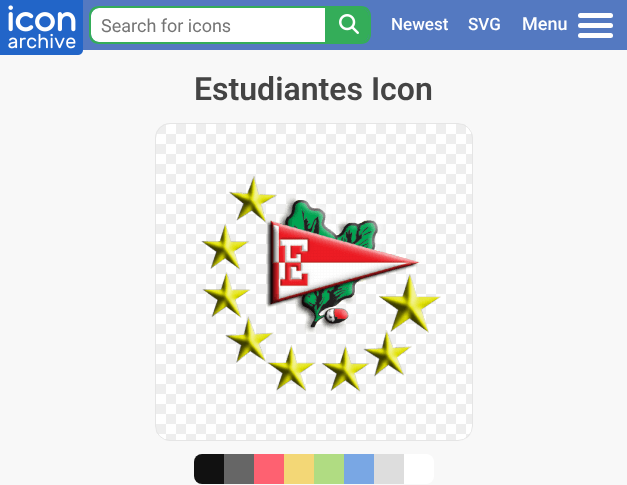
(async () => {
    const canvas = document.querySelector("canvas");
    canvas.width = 627;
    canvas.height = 485;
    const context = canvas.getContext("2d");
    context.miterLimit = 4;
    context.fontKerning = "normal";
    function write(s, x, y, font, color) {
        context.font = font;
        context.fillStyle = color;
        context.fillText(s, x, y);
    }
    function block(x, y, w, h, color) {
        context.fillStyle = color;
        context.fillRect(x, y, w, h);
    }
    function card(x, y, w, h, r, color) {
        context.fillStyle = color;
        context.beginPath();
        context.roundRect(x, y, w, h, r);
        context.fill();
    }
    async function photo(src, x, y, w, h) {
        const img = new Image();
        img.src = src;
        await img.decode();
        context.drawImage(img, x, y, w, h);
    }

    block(0, 0, 627, 485, "rgb(248, 248, 248)");
    block(83, 0, 544, 50, "rgb(84, 121, 193)");
    await photo("media/1.png", 0, 0, 83, 55);
    context.fillStyle = "rgb(255, 255, 255)";
    context.beginPath();
    context.roundRect(91, 8, 234, 34, [8, 0, 0, 8]);
    context.fill();
    context.fillStyle = "rgb(52, 173, 89)";
    context.beginPath();
    context.moveTo(99, 6);
    context.lineTo(325, 6);
    context.lineTo(325, 44);
    context.lineTo(99, 44);
    context.bezierCurveTo(93, 44, 89, 40, 89, 34);
    context.lineTo(89, 16);
    context.bezierCurveTo(89, 10, 93, 6, 99, 6);
    context.closePath();
    context.moveTo(99, 8);
    context.lineTo(325, 8);
    context.lineTo(325, 42);
    context.lineTo(99, 42);
    context.bezierCurveTo(95, 42, 91, 38, 91, 34);
    context.lineTo(91, 16);
    context.bezierCurveTo(91, 12, 95, 8, 99, 8);
    context.closePath();
    context.fill("evenodd");
    write("Search for icons", 101, 32, "18px Roboto", "rgb(117, 117, 117)");
    context.fillStyle = "rgb(52, 173, 89)";
    context.beginPath();
    context.roundRect(325, 8, 44, 34, [0, 8, 8, 0]);
    context.fill();
    context.beginPath();
    context.moveTo(325, 6);
    context.lineTo(361, 6);
    context.bezierCurveTo(367, 6, 371, 10, 371, 16);
    context.lineTo(371, 34);
    context.bezierCurveTo(371, 40, 367, 44, 361, 44);
    context.lineTo(325, 44);
    context.closePath();
    context.moveTo(325, 8);
    context.lineTo(355, 8);
    context.bezierCurveTo(370, 8, 369, 11, 369, 25);
    context.bezierCurveTo(369, 39, 370, 42, 355, 42);
    context.lineTo(325, 42);
    context.closePath();
    context.fill("evenodd");
    await photo("media/2.png", 339, 14, 20, 20);
    write("Newest", 391, 30, "500 17px Roboto", "rgb(255, 255, 255)");
    write("SVG", 468, 30, "500 17px Roboto", "rgb(255, 255, 255)");
    write("Menu", 522, 30, "500 18px Roboto", "rgb(255, 255, 255)");
    card(578, 13, 35, 5, 2.5, "rgb(255, 255, 255)");
    card(578, 23, 35, 5, 2.5, "rgb(255, 255, 255)");
    card(578, 33, 35, 5, 2.5, "rgb(255, 255, 255)");
    write("Estudiantes Icon", 194, 100, "600 32px Roboto", "rgb(68, 68, 68)");
    await photo("media/3.png", 155, 123, 318, 318);
    context.beginPath();
    context.roundRect(155.5, 123.5, 317, 317, 14.5);
    context.strokeStyle = "rgb(229, 229, 229)";
    context.stroke();
    await photo("media/4.png", 201, 176, 240, 216);
    context.fillStyle = "rgb(17, 17, 17)";
    context.beginPath();
    context.roundRect(194, 454, 30, 30, [8, 0, 0, 8]);
    context.fill();
    block(224, 454, 30, 30, "rgb(102, 102, 102)");
    block(254, 454, 30, 30, "rgb(254, 97, 113)");
    block(284, 454, 30, 30, "rgb(243, 215, 118)");
    block(314, 454, 30, 30, "rgb(176, 220, 130)");
    block(344, 454, 30, 30, "rgb(121, 167, 228)");
    block(374, 454, 30, 30, "rgb(221, 221, 221)");
    context.fillStyle = "rgb(255, 255, 255)";
    context.beginPath();
    context.roundRect(404, 454, 30, 30, [0, 8, 8, 0]);
    context.fill();
})();
